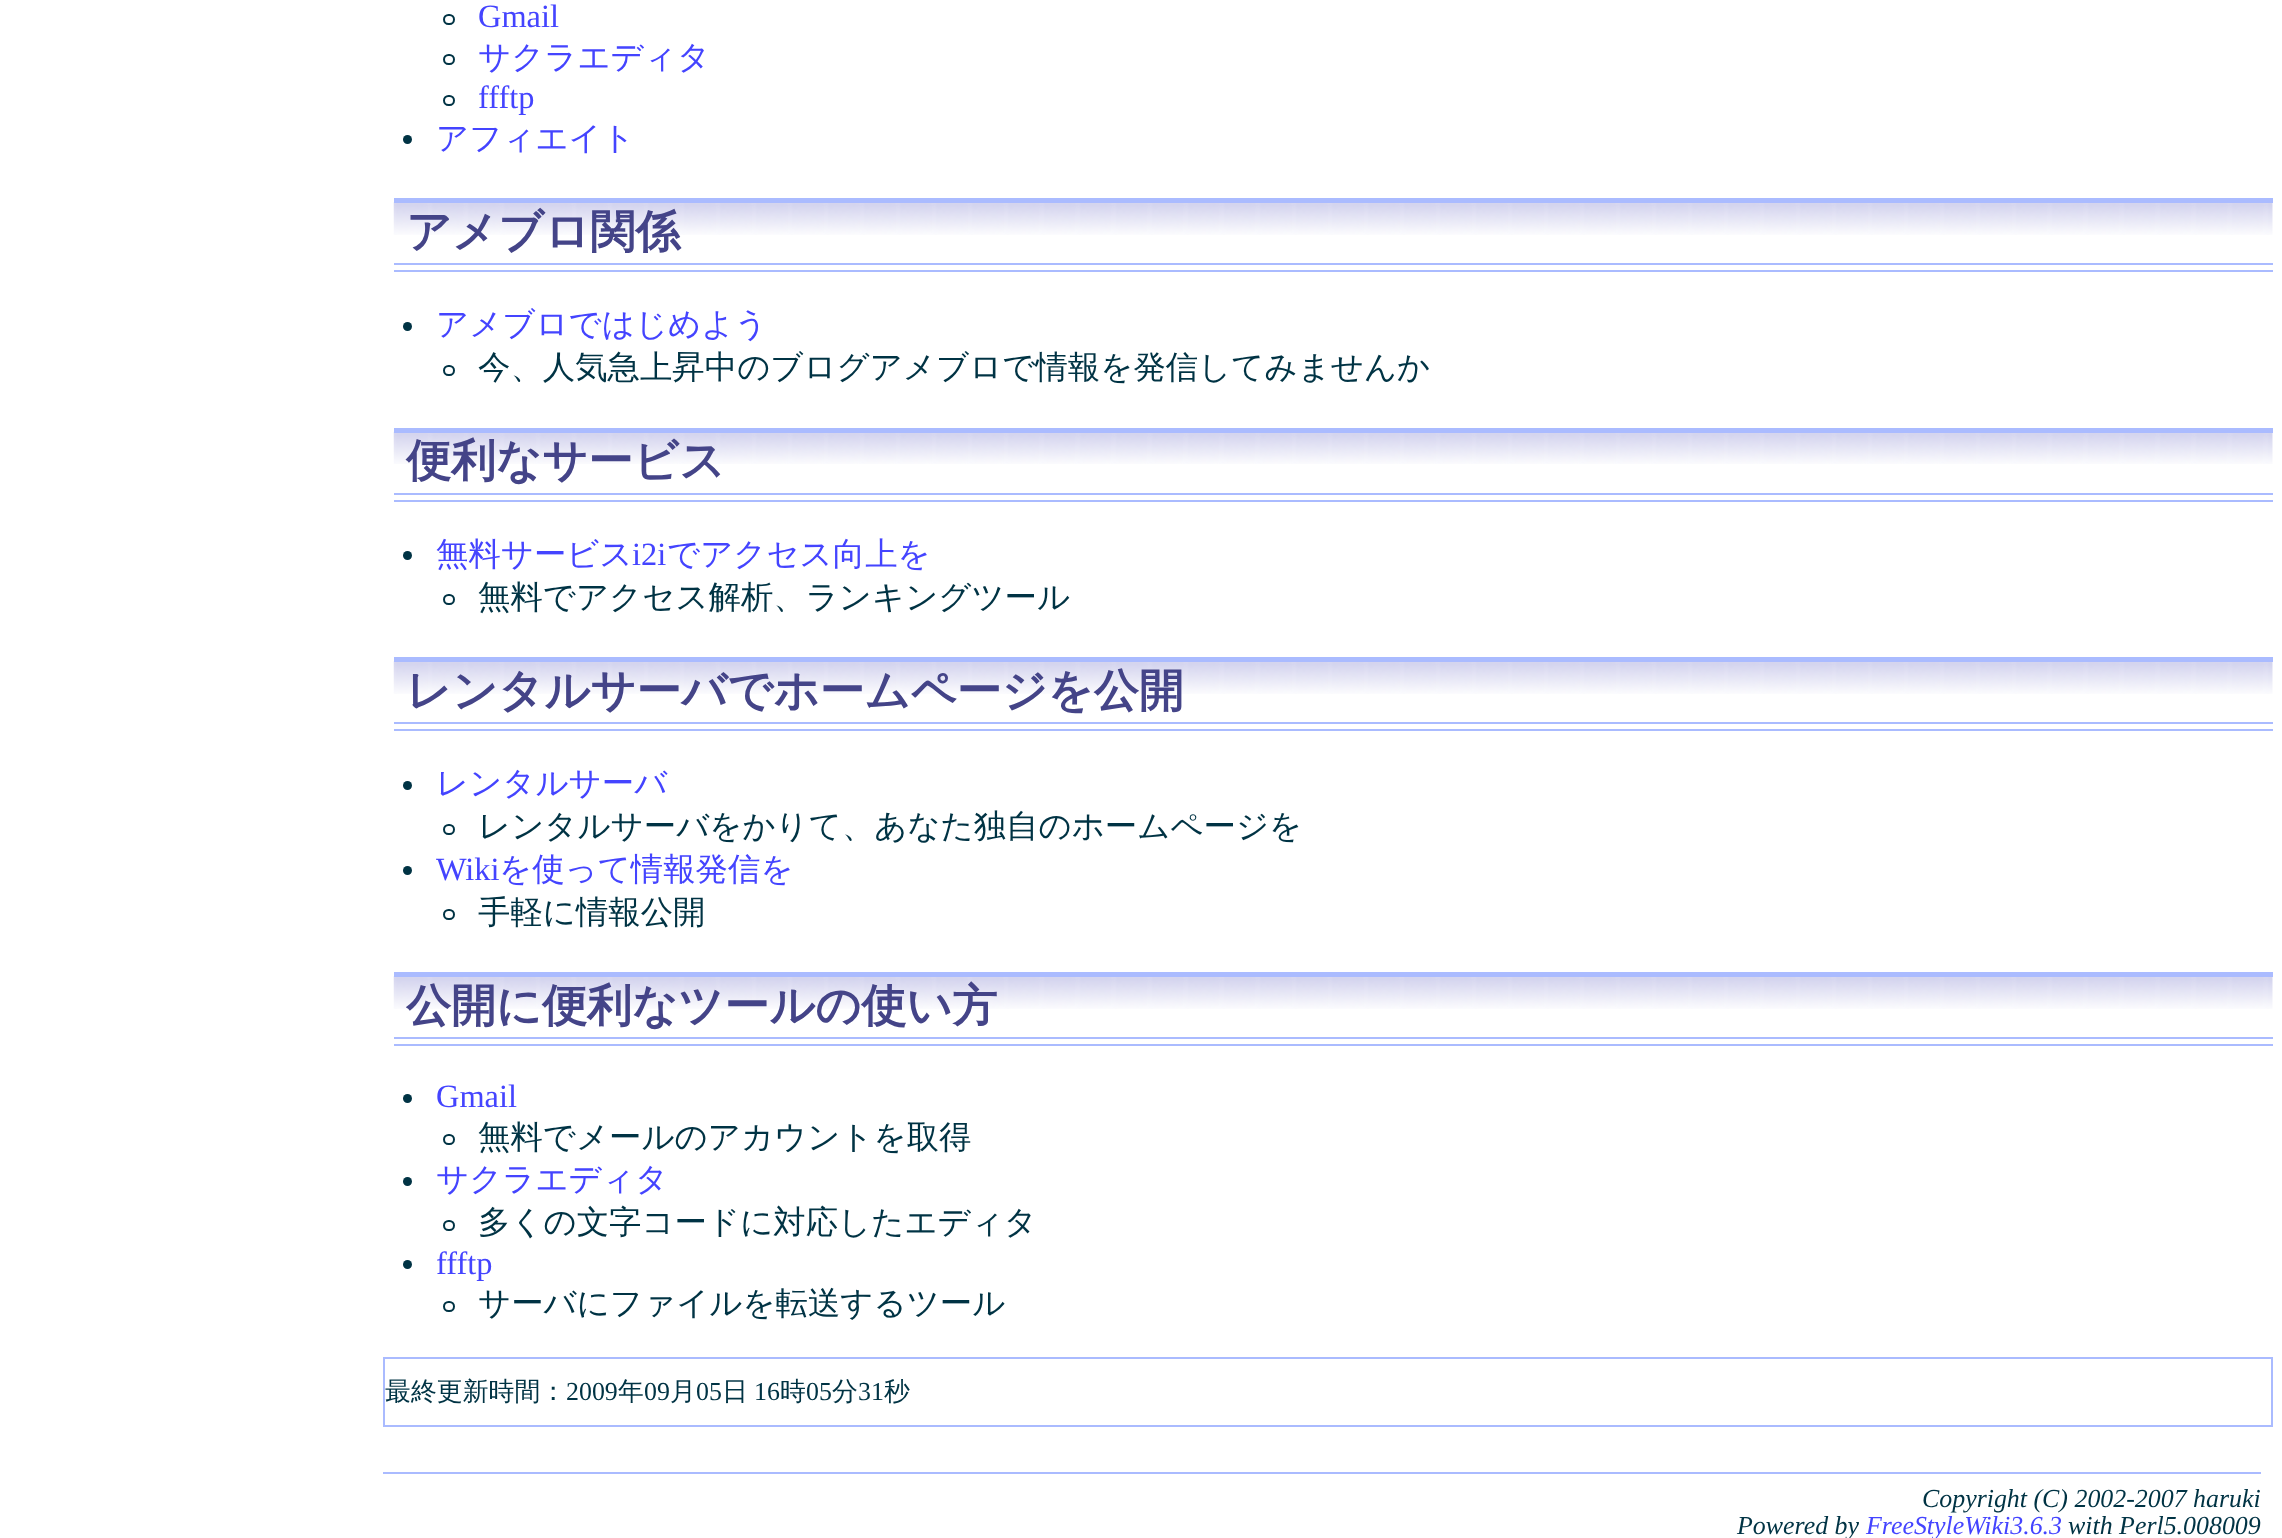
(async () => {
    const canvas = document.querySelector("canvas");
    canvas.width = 2282;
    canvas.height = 1538;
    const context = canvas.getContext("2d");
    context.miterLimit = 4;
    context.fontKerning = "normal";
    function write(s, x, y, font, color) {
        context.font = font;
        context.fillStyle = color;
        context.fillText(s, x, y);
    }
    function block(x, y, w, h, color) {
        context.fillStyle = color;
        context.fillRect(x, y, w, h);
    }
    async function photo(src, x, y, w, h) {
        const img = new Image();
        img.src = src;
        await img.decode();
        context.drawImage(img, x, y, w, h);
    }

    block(0, 0, 2282, 1538, "rgb(255, 255, 255)");
    context.beginPath();
    context.roundRect(444, 15, 10, 9, 4.5);
    context.strokeStyle = "rgb(0, 51, 68)";
    context.lineWidth = 2;
    context.stroke();
    write("Gmail", 478, 27, "32.4px Liberation Serif", "rgb(68, 68, 255)");
    context.beginPath();
    context.roundRect(444, 55, 10, 9, 4.5);
    context.stroke();
    write("サクラエディタ", 478, 68, "500 32.4px WenQuanYi Zen Hei", "rgb(68, 68, 255)");
    context.beginPath();
    context.roundRect(444, 96, 10, 9, 4.5);
    context.stroke();
    write("ffftp", 478, 108, "32.4px Liberation Serif", "rgb(68, 68, 255)");
    context.fillStyle = "rgb(0, 51, 68)";
    context.beginPath();
    context.arc(407.5, 139.5, 4.5, 0, Math.PI * 2);
    context.fill();
    write("アフィエイト", 436, 149, "500 32.4px WenQuanYi Zen Hei", "rgb(68, 68, 255)");
    await photo("media/1.png", 393, 202, 1880, 33);
    block(394, 198, 1879, 5, "rgb(170, 187, 255)");
    block(394, 263, 1879, 2, "rgb(170, 187, 255)");
    block(394, 270, 1879, 2, "rgb(170, 187, 255)");
    write("アメブロ関係", 406, 247, "bold 45px WenQuanYi Zen Hei", "rgb(68, 68, 136)");
    context.fillStyle = "rgb(0, 51, 68)";
    context.beginPath();
    context.arc(407.5, 326.5, 4.5, 0, Math.PI * 2);
    context.fill();
    write("アメブロではじめよう", 436, 335, "500 32.4px WenQuanYi Zen Hei", "rgb(68, 68, 255)");
    context.beginPath();
    context.roundRect(444, 366, 10, 9, 4.5);
    context.stroke();
    write("今、人気急上昇中のブログアメブロで情報を発信してみませんか", 478, 378, "500 32.4px WenQuanYi Zen Hei", "rgb(0, 51, 68)");
    await photo("media/2.png", 393, 431, 1880, 33);
    block(394, 428, 1879, 5, "rgb(170, 187, 255)");
    block(394, 493, 1879, 2, "rgb(170, 187, 255)");
    block(394, 500, 1879, 2, "rgb(170, 187, 255)");
    write("便利なサービス", 406, 476, "bold 45px WenQuanYi Zen Hei", "rgb(68, 68, 136)");
    context.fillStyle = "rgb(0, 51, 68)";
    context.beginPath();
    context.arc(407.5, 555.5, 4.5, 0, Math.PI * 2);
    context.fill();
    write("無料サービス", 436, 565, "500 32.4px WenQuanYi Zen Hei", "rgb(68, 68, 255)");
    write("i2i", 632, 565, "32.4px Liberation Serif", "rgb(68, 68, 255)");
    write("でアクセス向上を", 667, 565, "500 32.4px WenQuanYi Zen Hei", "rgb(68, 68, 255)");
    context.beginPath();
    context.roundRect(444, 595, 10, 9, 4.5);
    context.stroke();
    write("無料でアクセス解析、ランキングツール", 478, 608, "500 32.4px WenQuanYi Zen Hei", "rgb(0, 51, 68)");
    await photo("media/3.png", 393, 661, 1880, 33);
    block(394, 657, 1879, 5, "rgb(170, 187, 255)");
    block(394, 722, 1879, 2, "rgb(170, 187, 255)");
    block(394, 729, 1879, 2, "rgb(170, 187, 255)");
    write("レンタルサーバでホームページを公開", 406, 706, "bold 45px WenQuanYi Zen Hei", "rgb(68, 68, 136)");
    context.fillStyle = "rgb(0, 51, 68)";
    context.beginPath();
    context.arc(407.5, 785.5, 4.5, 0, Math.PI * 2);
    context.fill();
    write("レンタルサーバ", 436, 794, "500 32.4px WenQuanYi Zen Hei", "rgb(68, 68, 255)");
    context.beginPath();
    context.roundRect(444, 825, 10, 9, 4.5);
    context.stroke();
    write("レンタルサーバをかりて、あなた独自のホームページを", 478, 837, "500 32.4px WenQuanYi Zen Hei", "rgb(0, 51, 68)");
    context.beginPath();
    context.arc(407.5, 870.5, 4.5, 0, Math.PI * 2);
    context.fill();
    write("Wiki", 436, 880, "32.4px Liberation Serif", "rgb(68, 68, 255)");
    write("を使って情報発信を", 499, 880, "500 32.4px WenQuanYi Zen Hei", "rgb(68, 68, 255)");
    context.beginPath();
    context.roundRect(444, 910, 10, 9, 4.5);
    context.stroke();
    write("手軽に情報公開", 478, 923, "500 32.4px WenQuanYi Zen Hei", "rgb(0, 51, 68)");
    await photo("media/4.png", 393, 976, 1880, 33);
    block(394, 972, 1879, 5, "rgb(170, 187, 255)");
    block(394, 1037, 1879, 2, "rgb(170, 187, 255)");
    block(394, 1044, 1879, 2, "rgb(170, 187, 255)");
    write("公開に便利なツールの使い方", 406, 1021, "bold 45px WenQuanYi Zen Hei", "rgb(68, 68, 136)");
    context.fillStyle = "rgb(0, 51, 68)";
    context.beginPath();
    context.arc(407.5, 1098.5, 4.5, 0, Math.PI * 2);
    context.fill();
    write("Gmail", 436, 1107, "32.4px Liberation Serif", "rgb(68, 68, 255)");
    context.beginPath();
    context.roundRect(444, 1135, 10, 9, 4.5);
    context.stroke();
    write("無料でメールのアカウントを取得", 478, 1148, "500 32.4px WenQuanYi Zen Hei", "rgb(0, 51, 68)");
    context.beginPath();
    context.arc(407.5, 1181.5, 4.5, 0, Math.PI * 2);
    context.fill();
    write("サクラエディタ", 436, 1190, "500 32.4px WenQuanYi Zen Hei", "rgb(68, 68, 255)");
    context.beginPath();
    context.roundRect(444, 1221, 10, 9, 4.5);
    context.stroke();
    write("多くの文字コードに対応したエディタ", 478, 1233, "500 32.4px WenQuanYi Zen Hei", "rgb(0, 51, 68)");
    context.beginPath();
    context.arc(407.5, 1264.5, 4.5, 0, Math.PI * 2);
    context.fill();
    write("ffftp", 436, 1274, "32.4px Liberation Serif", "rgb(68, 68, 255)");
    context.beginPath();
    context.roundRect(444, 1302, 10, 9, 4.5);
    context.stroke();
    write("サーバにファイルを転送するツール", 478, 1314, "500 32.4px WenQuanYi Zen Hei", "rgb(0, 51, 68)");
    context.strokeStyle = "rgb(170, 187, 255)";
    context.strokeRect(384, 1358, 1888, 68);
    write("最終更新時間：", 385, 1400, "500 25.9px WenQuanYi Zen Hei", "rgb(0, 51, 68)");
    write("2009", 566, 1400, "25.9px Liberation Serif", "rgb(0, 51, 68)");
    write("年", 618, 1400, "500 25.9px WenQuanYi Zen Hei", "rgb(0, 51, 68)");
    write("09", 644, 1400, "25.9px Liberation Serif", "rgb(0, 51, 68)");
    write("月", 670, 1400, "500 25.9px WenQuanYi Zen Hei", "rgb(0, 51, 68)");
    write("05", 696, 1400, "25.9px Liberation Serif", "rgb(0, 51, 68)");
    write("日", 722, 1400, "500 25.9px WenQuanYi Zen Hei", "rgb(0, 51, 68)");
    write("16", 754, 1400, "25.9px Liberation Serif", "rgb(0, 51, 68)");
    write("時", 780, 1400, "500 25.9px WenQuanYi Zen Hei", "rgb(0, 51, 68)");
    write("05", 806, 1400, "25.9px Liberation Serif", "rgb(0, 51, 68)");
    write("分", 832, 1400, "500 25.9px WenQuanYi Zen Hei", "rgb(0, 51, 68)");
    write("31", 858, 1400, "25.9px Liberation Serif", "rgb(0, 51, 68)");
    write("秒", 884, 1400, "500 25.9px WenQuanYi Zen Hei", "rgb(0, 51, 68)");
    block(383, 1472, 1878, 2, "rgb(170, 187, 255)");
    write("Copyright (C) 2002-2007 haruki", 1922, 1507, "italic 25.9px Liberation Serif", "rgb(0, 51, 68)");
    write("Powered by", 1737, 1534, "italic 25.9px Liberation Serif", "rgb(0, 51, 68)");
    write("FreeStyleWiki3.6.3", 1866, 1534, "italic 25.9px Liberation Serif", "rgb(68, 68, 255)");
    write("with Perl5.008009", 2068, 1534, "italic 25.9px Liberation Serif", "rgb(0, 51, 68)");
})();
